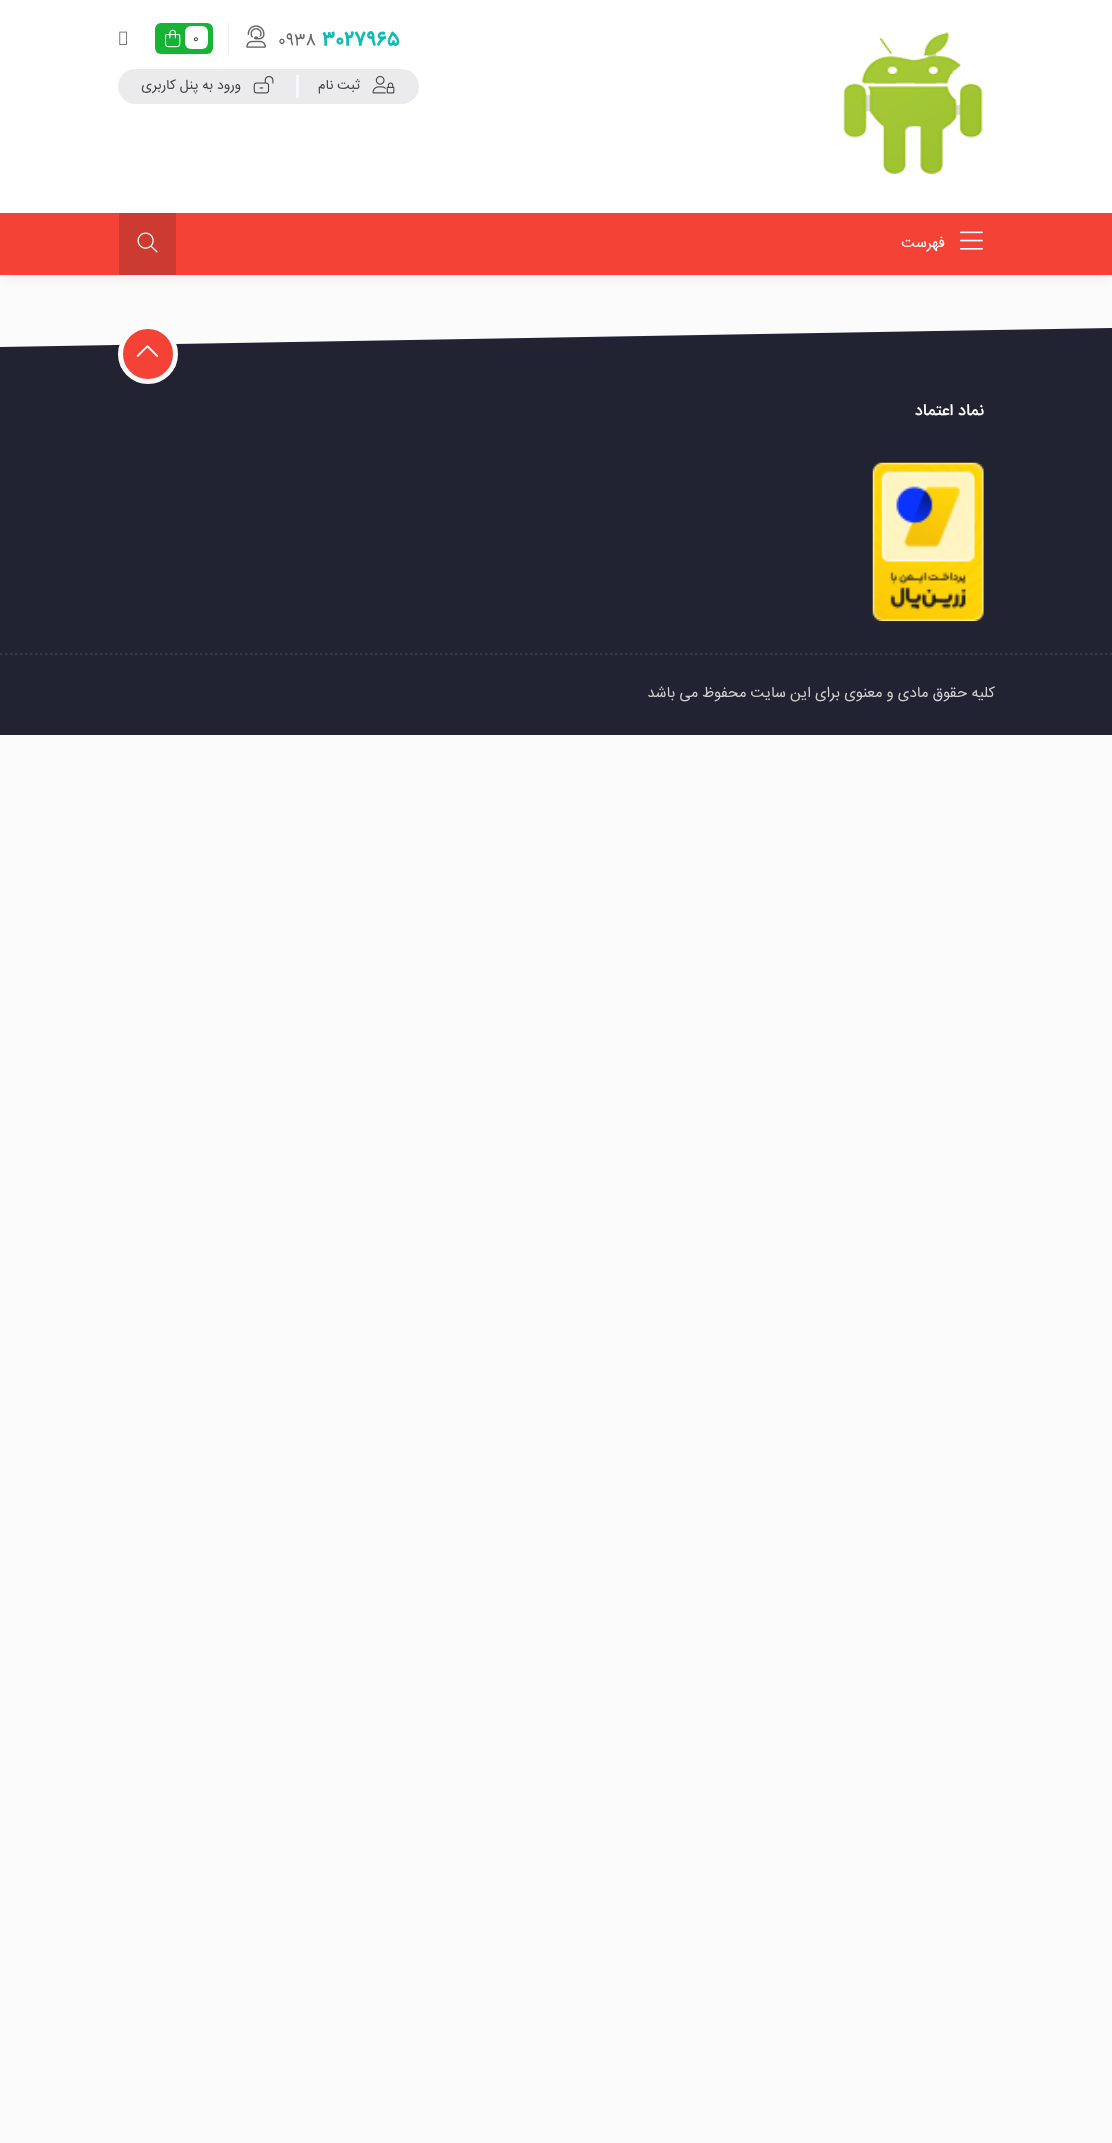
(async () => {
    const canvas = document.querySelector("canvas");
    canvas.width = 1112;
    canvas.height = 2143;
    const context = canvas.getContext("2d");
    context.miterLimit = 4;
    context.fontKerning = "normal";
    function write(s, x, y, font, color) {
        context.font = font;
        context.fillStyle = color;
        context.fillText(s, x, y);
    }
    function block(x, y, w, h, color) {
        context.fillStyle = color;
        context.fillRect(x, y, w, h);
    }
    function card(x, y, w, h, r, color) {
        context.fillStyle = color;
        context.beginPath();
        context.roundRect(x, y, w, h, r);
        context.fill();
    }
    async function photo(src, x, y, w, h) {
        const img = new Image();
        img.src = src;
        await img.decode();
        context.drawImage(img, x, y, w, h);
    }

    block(0, 0, 1112, 2143, "rgb(251, 251, 252)");
    context.fillStyle = "rgba(0, 0, 0, 0.1)";
    context.filter = "blur(7px)";
    context.beginPath();
    context.rect(4, 8, 1105, 267);
    context.fill();
    context.filter = "none";
    block(0, 0, 1112, 213, "rgb(255, 255, 255)");
    await photo("media/1.png", 843, 32, 140, 143);
    write("3027965", 322, 45, "bold 18.75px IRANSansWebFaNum", "rgb(16, 188, 180)");
    write("0938", 278, 45, "16.25px IRANSansWebFaNum", "rgb(102, 102, 102)");
    await photo("media/2.png", 246, 25, 20, 23);
    block(228, 23, 1, 31, "rgb(238, 238, 238)");
    card(155, 23, 58, 31, 6, "rgb(23, 179, 52)");
    card(185, 26, 23, 23, 6, "rgb(255, 255, 255)");
    write("0", 193, 42, "12px IRANSansWebFaNum", "rgb(51, 51, 51)");
    await photo("media/3.png", 165, 29, 16, 19);
    await photo("media/4.png", 119, 31, 8, 14);
    card(118, 69, 301, 35, 17.5, "rgb(235, 235, 237)");
    await photo("media/5.png", 372, 75, 23, 19);
    context.direction = "rtl";
    write("ثبت نام", 360, 89, "13.75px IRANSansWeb", "rgb(68, 68, 68)");
    block(296, 75, 3, 23, "rgb(247, 248, 251)");
    await photo("media/6.png", 253, 76, 21, 18);
    write("ورود به پنل کاربری", 241, 89, "13.75px IRANSansWeb", "rgb(68, 68, 68)");
    block(0, 213, 1112, 62, "rgb(244, 67, 54)");
    await photo("media/7.png", 960, 231, 23, 19);
    write("فهرست", 945, 247, "15px IRANSansWeb", "rgb(255, 255, 255)");
    block(119, 213, 57, 62, "rgb(204, 59, 49)");
    await photo("media/8.png", 137, 232, 21, 21);
    block(0, 390, 1112, 345, "rgb(34, 35, 50)");
    context.beginPath();
    context.moveTo(0, 347);
    context.lineTo(1112, 328);
    context.lineTo(1112, 390);
    context.lineTo(0, 410);
    context.closePath();
    context.fill();
    context.fillStyle = "rgb(244, 67, 54)";
    context.beginPath();
    context.arc(148, 354, 27.5, 0, Math.PI * 2);
    context.fill();
    context.strokeStyle = "rgb(251, 251, 252)";
    context.lineWidth = 5;
    context.stroke();
    await photo("media/9.png", 136, 345, 23, 12);
    write("نماد اعتماد", 984, 415, "500 16.25px IRANSansWeb", "rgb(255, 255, 255)");
    await photo("media/10.png", 872, 462, 112, 160);
    context.beginPath();
    context.moveTo(0, 654);
    context.lineTo(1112.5, 654);
    context.strokeStyle = "rgb(54, 55, 68)";
    context.lineWidth = 2.5;
    context.setLineDash([2.5, 2.5]);
    context.stroke();
    write("کلیه حقوق مادی و معنوی برای این سایت محفوظ می باشد", 995, 697, "15px IRANSansWebFaNum", "rgb(208, 208, 208)");
})();
